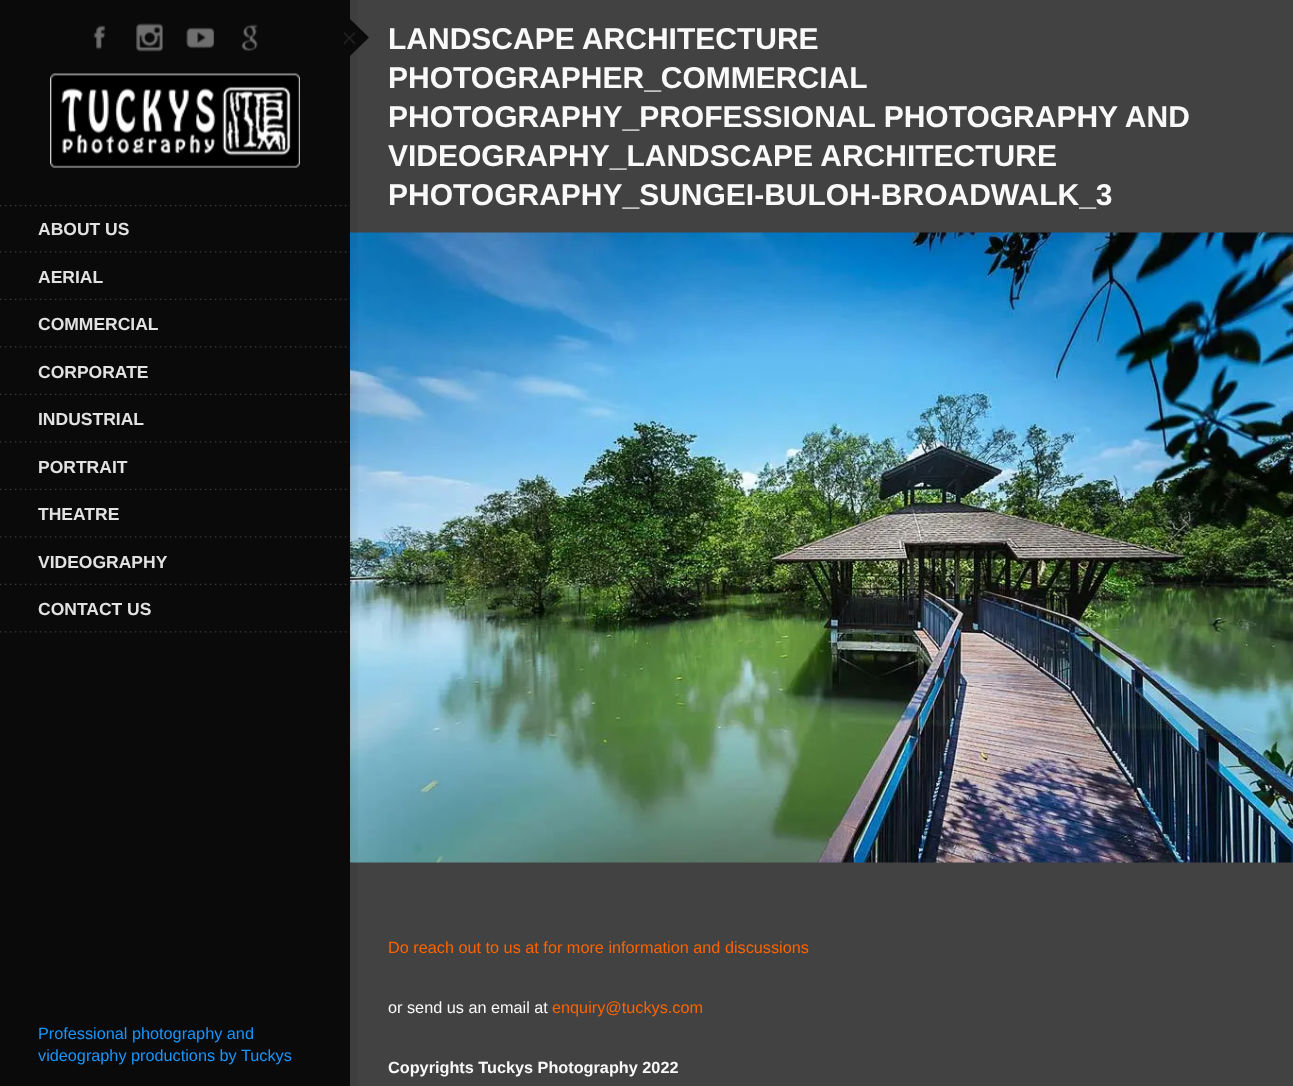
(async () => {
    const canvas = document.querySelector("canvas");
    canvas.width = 1293;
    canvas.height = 1086;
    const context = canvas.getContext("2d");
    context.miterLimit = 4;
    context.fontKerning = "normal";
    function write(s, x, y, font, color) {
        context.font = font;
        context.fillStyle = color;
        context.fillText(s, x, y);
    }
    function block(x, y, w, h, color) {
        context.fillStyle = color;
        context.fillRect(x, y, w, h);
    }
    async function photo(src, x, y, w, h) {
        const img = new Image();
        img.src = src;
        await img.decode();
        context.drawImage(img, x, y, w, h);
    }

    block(0, 0, 1293, 1086, "rgb(66, 66, 66)");
    block(0, 0, 350, 1086, "rgb(10, 10, 10)");
    await photo("media/11.png", 350, 232, 943, 631);
    await photo("media/1.png", 350, 0, 8, 1086);
    context.beginPath();
    context.moveTo(350, 56);
    context.lineTo(350, 19);
    context.lineTo(369, 37.5);
    context.closePath();
    context.fill();
    await photo("media/2.png", 343, 32, 12, 13);
    await photo("media/3.png", 93, 25, 13, 25);
    await photo("media/4.png", 136, 23, 27, 29);
    await photo("media/5.png", 186, 27, 29, 22);
    await photo("media/6.png", 241, 24, 17, 28);
    await photo("media/7.png", 50, 73, 250, 95);
    await photo("media/8.png", 0, 251, 350, 2);
    await photo("media/9.png", 0, 205, 350, 2);
    write("ABOUT US", 38, 235, "bold 17.5px Liberation Sans", "rgb(226, 226, 226)");
    await photo("media/10.png", 0, 298, 350, 2);
    write("AERIAL", 38, 283, "bold 17.5px Liberation Sans", "rgb(226, 226, 226)");
    await photo("media/8.png", 0, 346, 350, 2);
    write("COMMERCIAL", 38, 330, "bold 17.5px Liberation Sans", "rgb(226, 226, 226)");
    await photo("media/10.png", 0, 393, 350, 2);
    write("CORPORATE", 38, 378, "bold 17.5px Liberation Sans", "rgb(226, 226, 226)");
    await photo("media/8.png", 0, 441, 350, 2);
    write("INDUSTRIAL", 38, 425, "bold 17.5px Liberation Sans", "rgb(226, 226, 226)");
    await photo("media/10.png", 0, 488, 350, 2);
    write("PORTRAIT", 38, 473, "bold 17.5px Liberation Sans", "rgb(226, 226, 226)");
    await photo("media/8.png", 0, 536, 350, 2);
    write("THEATRE", 38, 520, "bold 17.5px Liberation Sans", "rgb(226, 226, 226)");
    await photo("media/10.png", 0, 583, 350, 2);
    write("VIDEOGRAPHY", 38, 568, "bold 17.5px Liberation Sans", "rgb(226, 226, 226)");
    await photo("media/8.png", 0, 631, 350, 2);
    write("CONTACT US", 38, 615, "bold 17.5px Liberation Sans", "rgb(226, 226, 226)");
    write("Professional photography and", 38, 1039, "16.25px Liberation Sans", "rgb(25, 150, 252)");
    write("videography productions by Tuckys", 38, 1061, "16.25px Liberation Sans", "rgb(25, 150, 252)");
    write("LANDSCAPE ARCHITECTURE", 388, 49, "bold 30px Liberation Sans", "rgb(249, 249, 249)");
    write("PHOTOGRAPHER_COMMERCIAL", 388, 88, "bold 30px Liberation Sans", "rgb(249, 249, 249)");
    write("PHOTOGRAPHY_PROFESSIONAL PHOTOGRAPHY AND", 388, 127, "bold 30px Liberation Sans", "rgb(249, 249, 249)");
    write("VIDEOGRAPHY_LANDSCAPE ARCHITECTURE", 388, 166, "bold 30px Liberation Sans", "rgb(249, 249, 249)");
    write("PHOTOGRAPHY_SUNGEI-BULOH-BROADWALK_3", 388, 205, "bold 30px Liberation Sans", "rgb(249, 249, 249)");
    write("Do reach out to us at for more information and discussions", 388, 953, "16.25px Liberation Sans", "rgb(252, 100, 0)");
    write("or send us an email at", 388, 1013, "16.25px Liberation Sans", "rgb(249, 249, 249)");
    write("enquiry@tuckys.com", 552, 1013, "16.25px Liberation Sans", "rgb(252, 100, 0)");
    write("Copyrights Tuckys Photography 2022", 388, 1073, "bold 16.25px Liberation Sans", "rgb(249, 249, 249)");
})();
